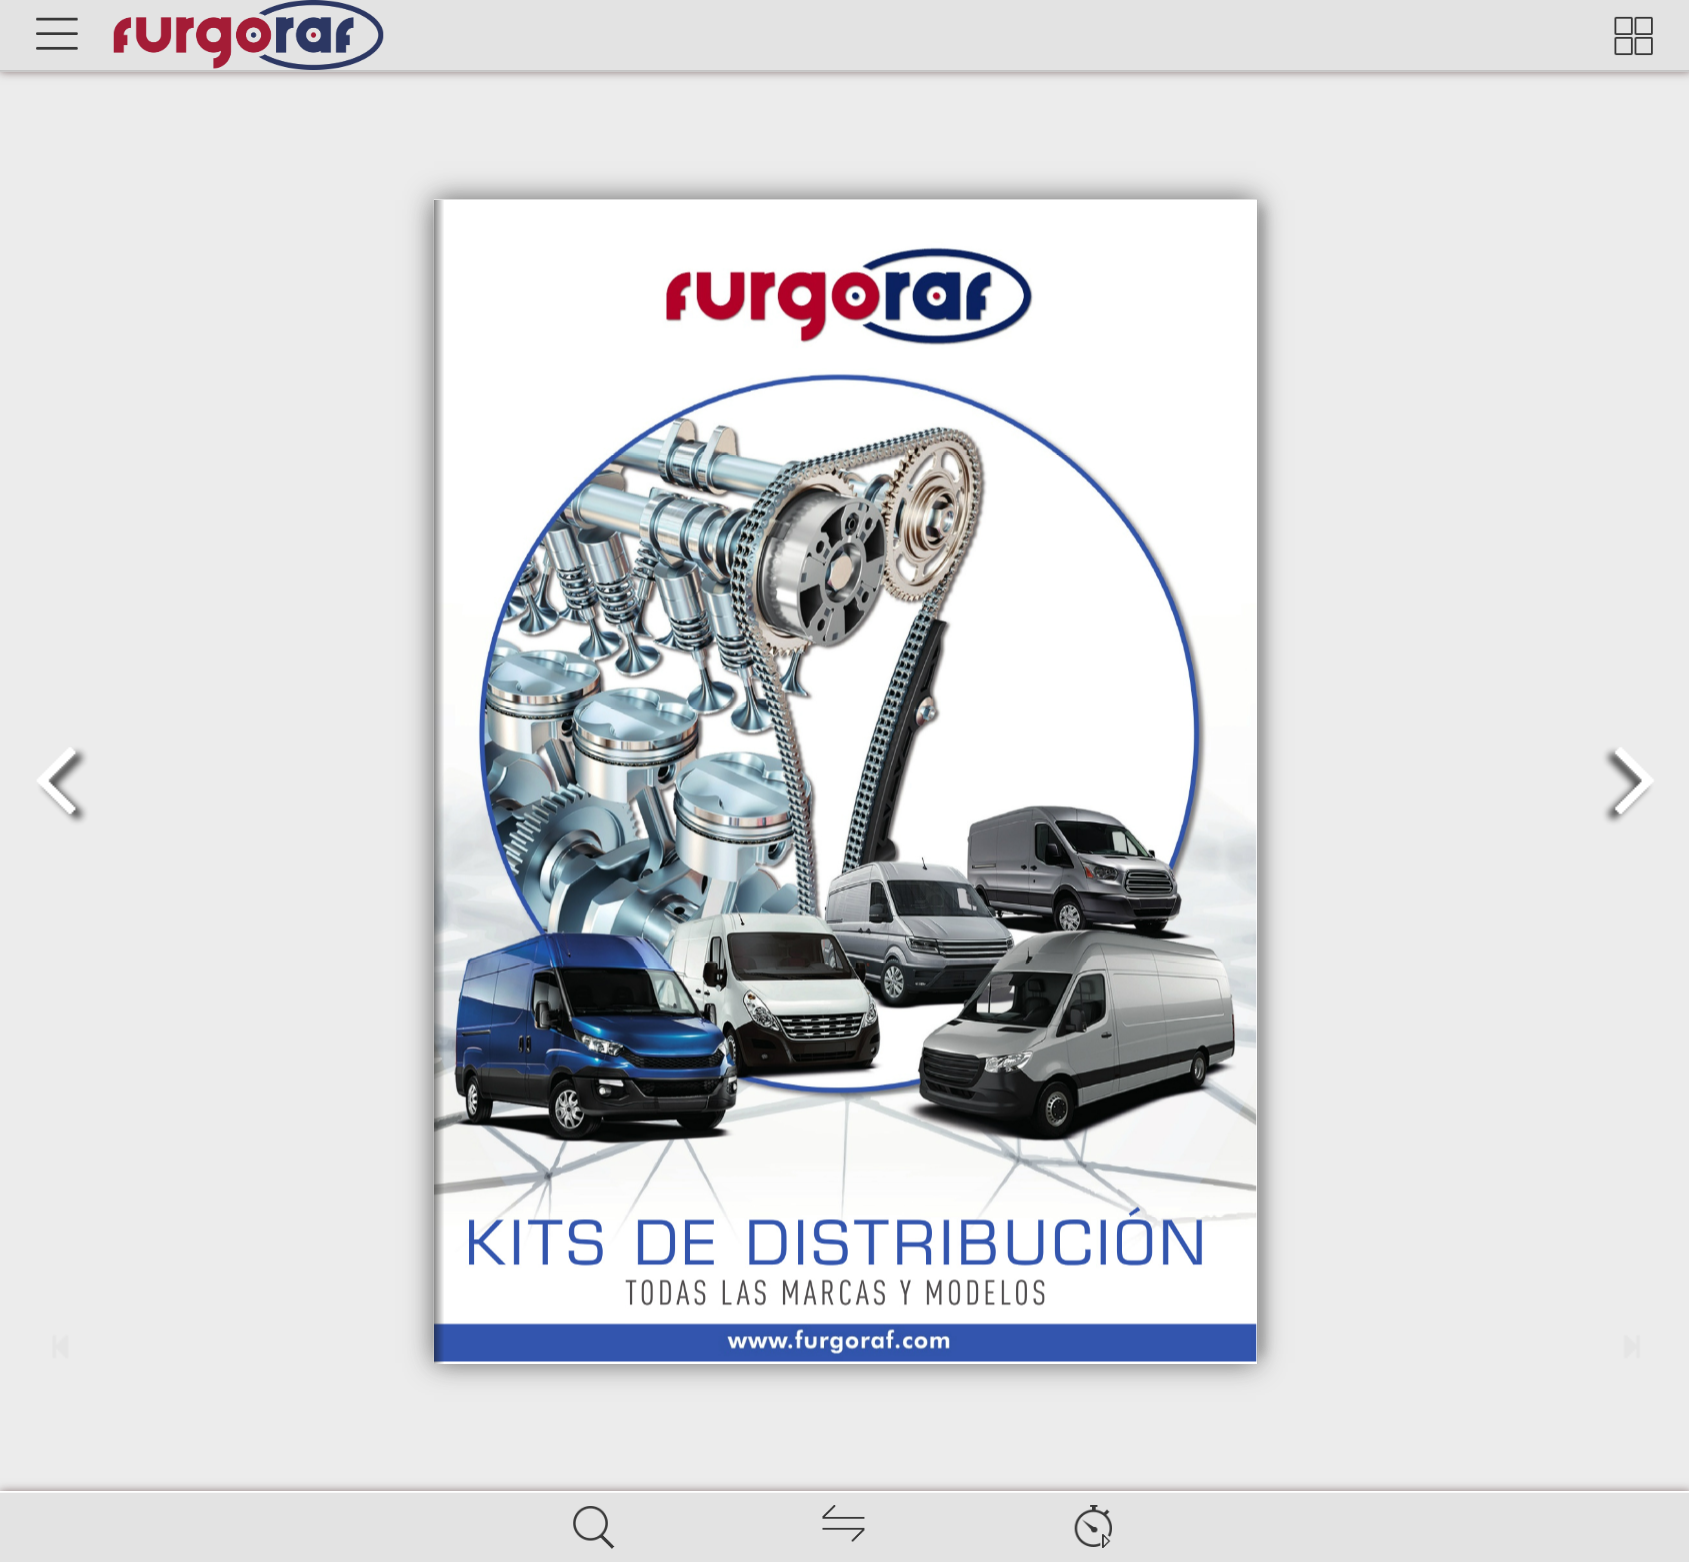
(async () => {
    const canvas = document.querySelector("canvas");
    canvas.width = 1689;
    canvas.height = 1562;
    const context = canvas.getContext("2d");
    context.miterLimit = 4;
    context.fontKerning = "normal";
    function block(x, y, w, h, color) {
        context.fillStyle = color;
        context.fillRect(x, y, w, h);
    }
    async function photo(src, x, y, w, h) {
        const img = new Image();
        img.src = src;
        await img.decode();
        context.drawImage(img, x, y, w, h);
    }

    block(0, 0, 1689, 1562, "rgb(255, 255, 255)");
    await photo("media/1.png", 0, 0, 1689, 1562);
})();
